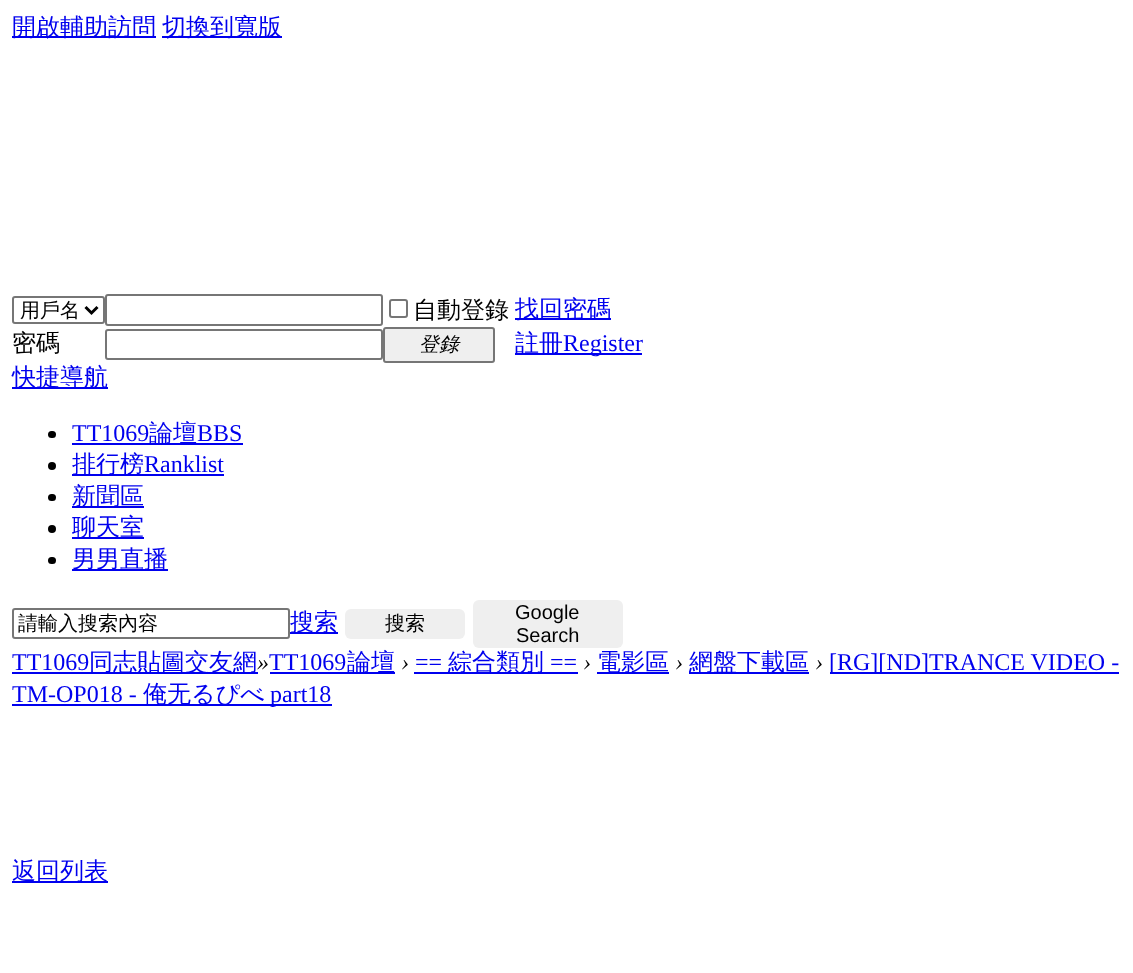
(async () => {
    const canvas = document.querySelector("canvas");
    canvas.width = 1133;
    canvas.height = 973;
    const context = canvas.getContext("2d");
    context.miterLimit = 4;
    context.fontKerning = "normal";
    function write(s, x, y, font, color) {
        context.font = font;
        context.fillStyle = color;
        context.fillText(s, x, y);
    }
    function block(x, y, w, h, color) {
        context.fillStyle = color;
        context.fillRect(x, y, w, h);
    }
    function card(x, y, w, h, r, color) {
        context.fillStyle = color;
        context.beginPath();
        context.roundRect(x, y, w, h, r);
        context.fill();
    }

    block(0, 0, 1133, 973, "rgb(255, 255, 255)");
    block(12, 36, 144, 2, "rgb(0, 0, 238)");
    write("開啟輔助訪問", 12, 35, "500 24px WenQuanYi Zen Hei", "rgb(0, 0, 238)");
    block(162, 36, 120, 2, "rgb(0, 0, 238)");
    write("切換到寬版", 162, 35, "500 24px WenQuanYi Zen Hei", "rgb(0, 0, 238)");
    context.beginPath();
    context.roundRect(13, 297, 91, 26, 2);
    context.strokeStyle = "rgb(118, 118, 118)";
    context.lineWidth = 2;
    context.stroke();
    context.beginPath();
    context.moveTo(85.5, 307);
    context.lineTo(91.5, 313);
    context.lineTo(97.5, 307);
    context.strokeStyle = "rgb(0, 0, 0)";
    context.lineWidth = 3;
    context.stroke();
    write("用戶名", 20, 317, "500 20px WenQuanYi Zen Hei", "rgb(0, 0, 0)");
    context.beginPath();
    context.roundRect(106, 295, 276, 30, 2);
    context.strokeStyle = "rgb(118, 118, 118)";
    context.lineWidth = 2;
    context.stroke();
    context.beginPath();
    context.roundRect(390, 300, 17, 17, 2);
    context.stroke();
    write("自動登錄", 413, 318, "500 24px WenQuanYi Zen Hei", "rgb(0, 0, 0)");
    block(515, 318, 96, 2, "rgb(0, 0, 238)");
    write("找回密碼", 515, 317, "500 24px WenQuanYi Zen Hei", "rgb(0, 0, 238)");
    write("密碼", 12, 351, "500 24px WenQuanYi Zen Hei", "rgb(0, 0, 0)");
    context.beginPath();
    context.roundRect(106, 330, 276, 29, 2);
    context.stroke();
    context.fillStyle = "rgb(239, 239, 239)";
    context.beginPath();
    context.roundRect(384, 328, 110, 34, 2);
    context.fill();
    context.stroke();
    write("登錄", 419, 351, "italic 500 20px WenQuanYi Zen Hei", "rgb(0, 0, 0)");
    block(515, 353, 127, 2, "rgb(0, 0, 238)");
    write("註冊", 515, 351, "500 24px WenQuanYi Zen Hei", "rgb(0, 0, 238)");
    write("Register", 563, 351, "24px Liberation Serif", "rgb(0, 0, 238)");
    block(12, 387, 96, 2, "rgb(0, 0, 238)");
    write("快捷導航", 12, 385, "500 24px WenQuanYi Zen Hei", "rgb(0, 0, 238)");
    card(48, 431, 8, 7, 3.5, "rgb(0, 0, 0)");
    write("TT1069", 72, 441, "24px Liberation Serif", "rgb(0, 0, 238)");
    block(72, 443, 171, 2, "rgb(0, 0, 238)");
    write("論壇", 149, 441, "500 24px WenQuanYi Zen Hei", "rgb(0, 0, 238)");
    write("BBS", 197, 441, "24px Liberation Serif", "rgb(0, 0, 238)");
    context.fillStyle = "rgb(0, 0, 0)";
    context.beginPath();
    context.arc(52, 466, 4, 0, Math.PI * 2);
    context.fill();
    block(72, 474, 152, 2, "rgb(0, 0, 238)");
    write("排行榜", 72, 472, "500 24px WenQuanYi Zen Hei", "rgb(0, 0, 238)");
    write("Ranklist", 144, 472, "24px Liberation Serif", "rgb(0, 0, 238)");
    card(48, 494, 8, 7, 3.5, "rgb(0, 0, 0)");
    block(72, 506, 72, 2, "rgb(0, 0, 238)");
    write("新聞區", 72, 504, "500 24px WenQuanYi Zen Hei", "rgb(0, 0, 238)");
    context.fillStyle = "rgb(0, 0, 0)";
    context.beginPath();
    context.arc(52, 529, 4, 0, Math.PI * 2);
    context.fill();
    block(72, 537, 72, 2, "rgb(0, 0, 238)");
    write("聊天室", 72, 535, "500 24px WenQuanYi Zen Hei", "rgb(0, 0, 238)");
    card(48, 557, 8, 7, 3.5, "rgb(0, 0, 0)");
    block(72, 569, 96, 2, "rgb(0, 0, 238)");
    write("男男直播", 72, 567, "500 24px WenQuanYi Zen Hei", "rgb(0, 0, 238)");
    context.beginPath();
    context.roundRect(13, 609, 276, 29, 2);
    context.stroke();
    write("請輸入搜索內容", 18, 630, "500 20px WenQuanYi Zen Hei", "rgb(0, 0, 0)");
    block(290, 632, 48, 2, "rgb(0, 0, 238)");
    write("搜索", 290, 630, "500 24px WenQuanYi Zen Hei", "rgb(0, 0, 238)");
    card(345, 609, 120, 30, 6, "rgb(239, 239, 239)");
    write("搜索", 385, 630, "500 20px WenQuanYi Zen Hei", "rgb(0, 0, 0)");
    card(473, 600, 150, 48, 6, "rgb(239, 239, 239)");
    write("Google", 515, 619, "20px Liberation Sans", "rgb(0, 0, 0)");
    write("Search", 516, 642, "20px Liberation Sans", "rgb(0, 0, 0)");
    write("TT1069", 12, 670, "24px Liberation Serif", "rgb(0, 0, 238)");
    block(12, 672, 246, 2, "rgb(0, 0, 238)");
    write("同志貼圖交友網", 89, 670, "500 24px WenQuanYi Zen Hei", "rgb(0, 0, 238)");
    write("»", 257, 670, "italic 24px Liberation Serif", "rgb(0, 0, 0)");
    write("TT1069", 269, 670, "24px Liberation Serif", "rgb(0, 0, 238)");
    block(270, 672, 125, 2, "rgb(0, 0, 238)");
    write("論壇", 347, 670, "500 24px WenQuanYi Zen Hei", "rgb(0, 0, 238)");
    write("›", 401, 670, "italic 24px Liberation Serif", "rgb(0, 0, 0)");
    write("==", 415, 670, "24px Liberation Serif", "rgb(0, 0, 238)");
    block(414, 672, 164, 2, "rgb(0, 0, 238)");
    write("綜合類別", 448, 670, "500 24px WenQuanYi Zen Hei", "rgb(0, 0, 238)");
    write("==", 550, 670, "24px Liberation Serif", "rgb(0, 0, 238)");
    write("›", 583, 670, "italic 24px Liberation Serif", "rgb(0, 0, 0)");
    block(597, 672, 72, 2, "rgb(0, 0, 238)");
    write("電影區", 597, 670, "500 24px WenQuanYi Zen Hei", "rgb(0, 0, 238)");
    write("›", 675, 670, "italic 24px Liberation Serif", "rgb(0, 0, 0)");
    block(689, 672, 120, 2, "rgb(0, 0, 238)");
    write("網盤下載區", 689, 670, "500 24px WenQuanYi Zen Hei", "rgb(0, 0, 238)");
    write("›", 815, 670, "italic 24px Liberation Serif", "rgb(0, 0, 0)");
    block(830, 672, 289, 2, "rgb(0, 0, 238)");
    write("[RG][ND]TRANCE VIDEO -", 829, 670, "24px Liberation Serif", "rgb(0, 0, 238)");
    write("TM-OP018 -", 12, 702, "24px Liberation Serif", "rgb(0, 0, 238)");
    block(12, 704, 320, 2, "rgb(0, 0, 238)");
    write("俺无るぴべ", 143, 702, "500 24px WenQuanYi Zen Hei", "rgb(0, 0, 238)");
    write("part18", 270, 702, "24px Liberation Serif", "rgb(0, 0, 238)");
    block(12, 881, 96, 2, "rgb(0, 0, 238)");
    write("返回列表", 12, 879, "500 24px WenQuanYi Zen Hei", "rgb(0, 0, 238)");
})();
